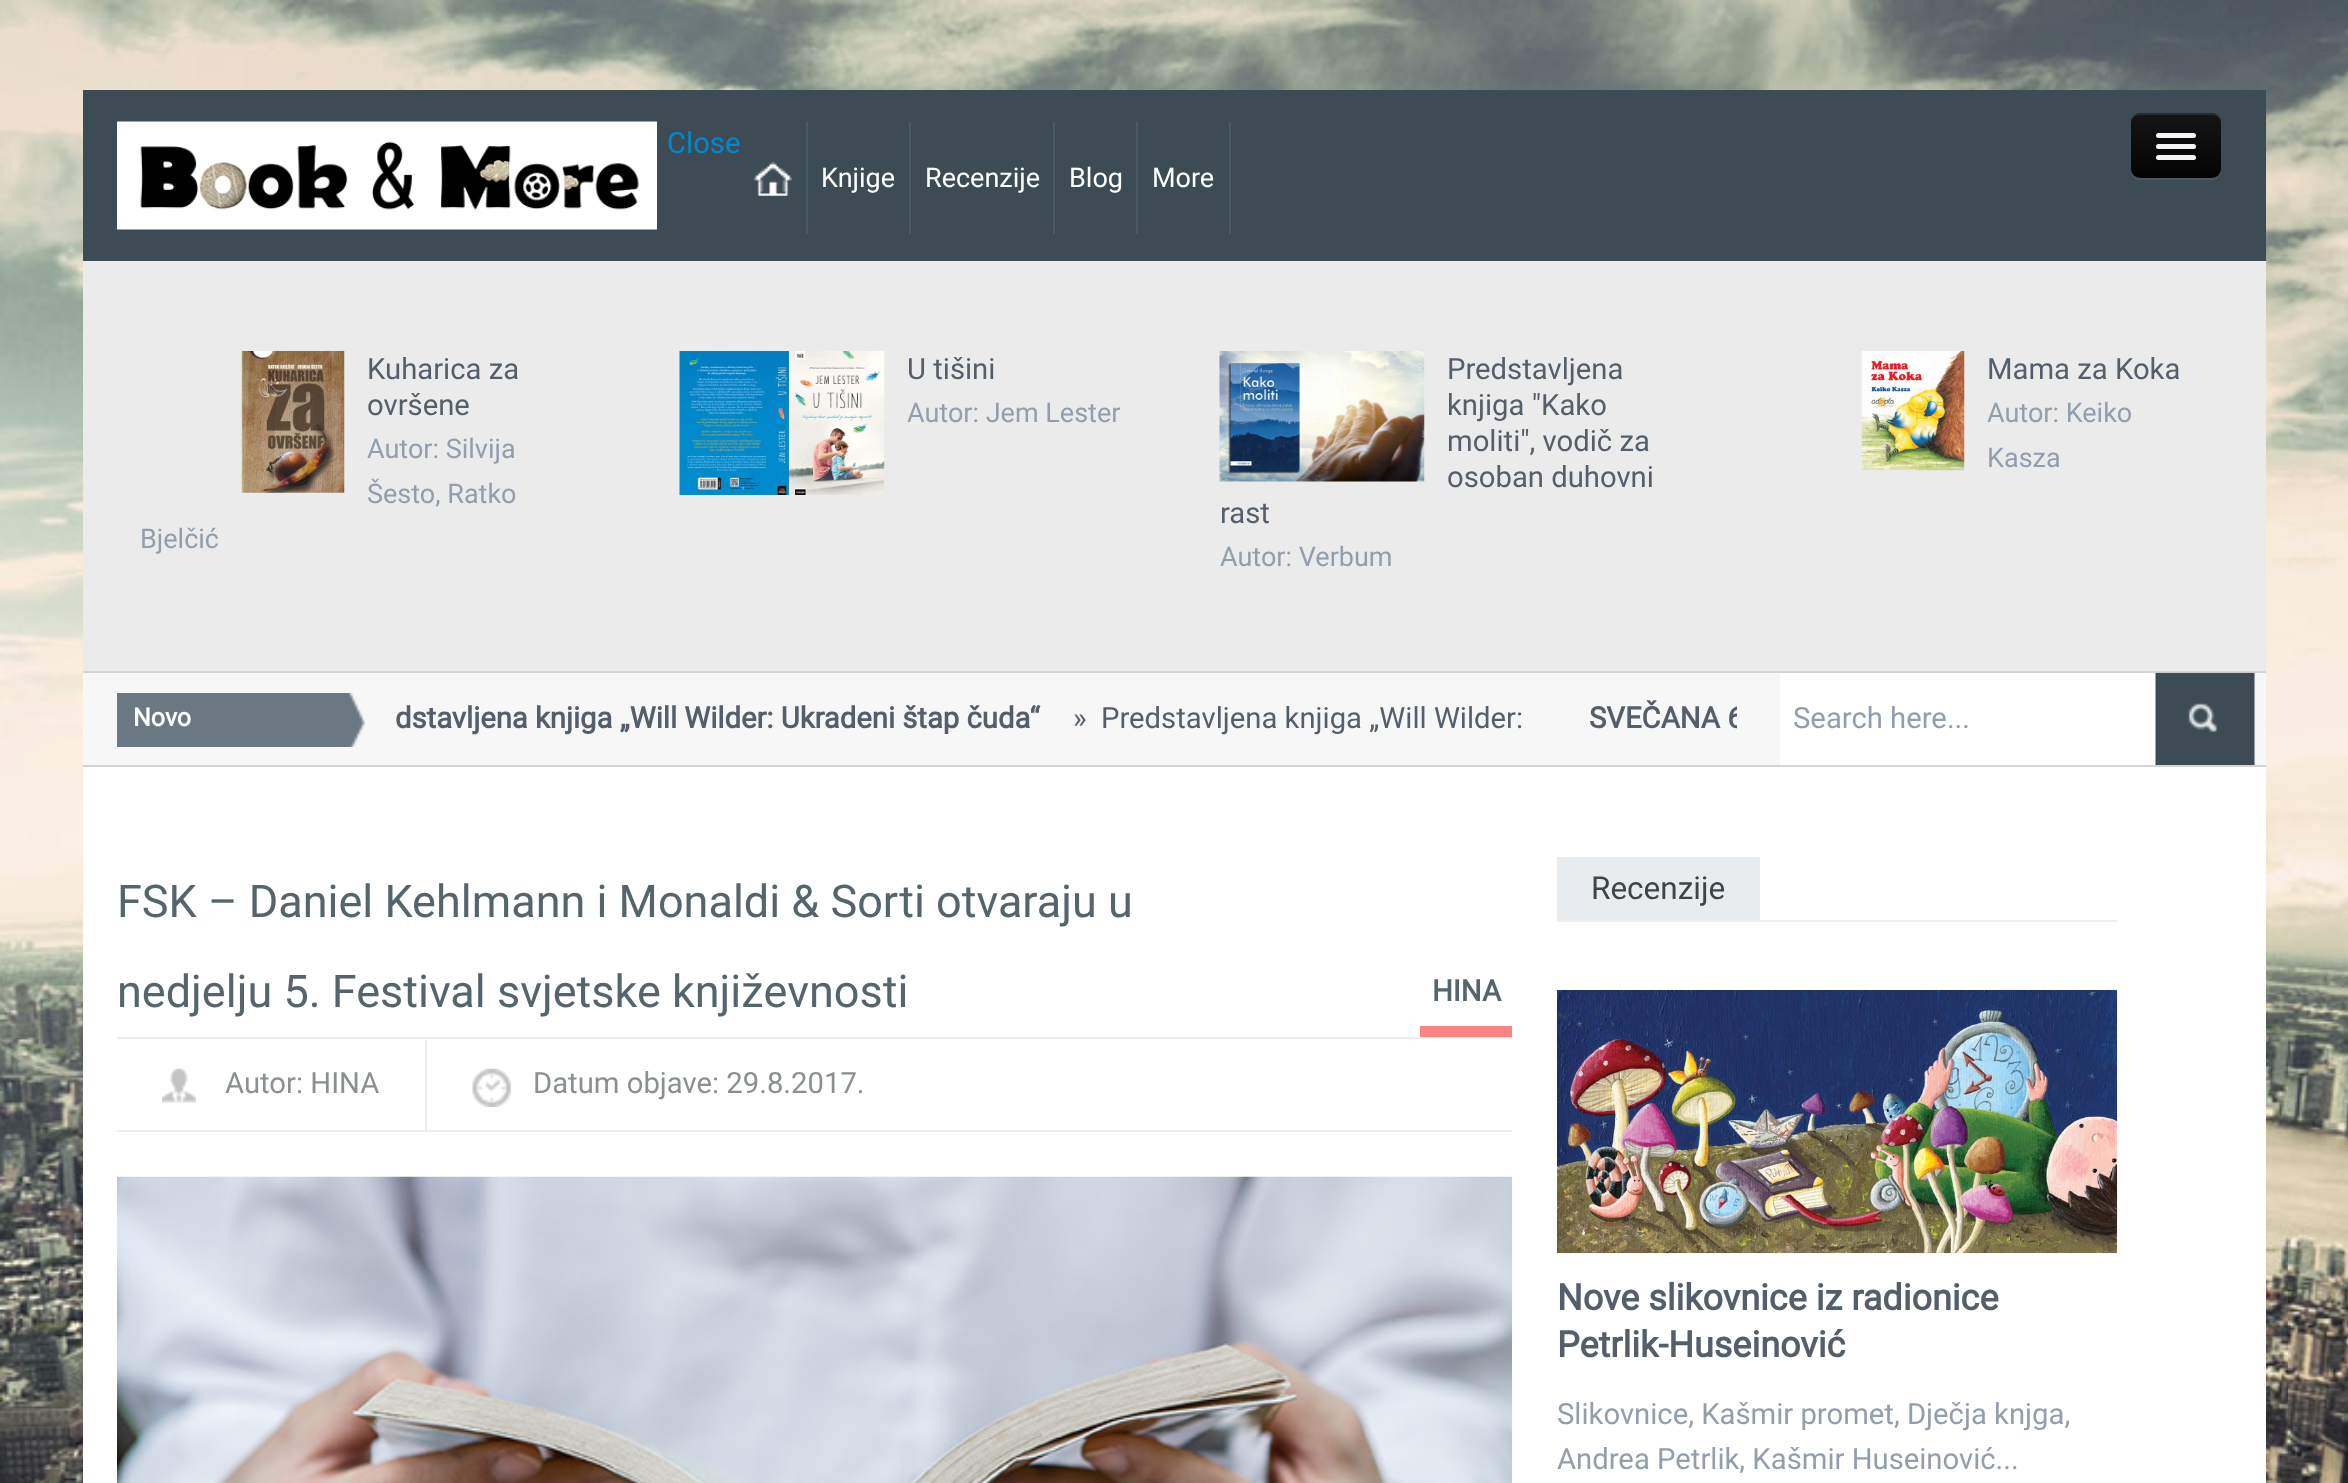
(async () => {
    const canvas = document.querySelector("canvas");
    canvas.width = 2348;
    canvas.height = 1483;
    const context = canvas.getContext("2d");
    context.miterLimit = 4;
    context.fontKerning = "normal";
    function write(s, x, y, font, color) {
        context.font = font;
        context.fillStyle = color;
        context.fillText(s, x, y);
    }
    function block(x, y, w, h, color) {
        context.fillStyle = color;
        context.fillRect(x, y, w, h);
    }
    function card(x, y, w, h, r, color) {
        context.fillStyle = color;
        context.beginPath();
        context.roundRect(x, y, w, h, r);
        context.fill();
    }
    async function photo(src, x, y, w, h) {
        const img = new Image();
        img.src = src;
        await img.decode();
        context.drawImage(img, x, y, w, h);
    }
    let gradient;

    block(0, 0, 2348, 1483, "rgb(255, 255, 255)");
    await photo("media/1.png", 0, 0, 2348, 1483);
    block(83, 90, 2183, 171, "rgb(61, 76, 84)");
    await photo("media/2.png", 117, 121, 540, 109);
    write("Close", 667, 153, "29.25px Roboto", "rgb(0, 136, 204)");
    block(806, 122, 2, 112, "rgb(72, 90, 99)");
    await photo("media/3.png", 753, 162, 39, 34);
    block(909, 122, 2, 112, "rgb(72, 90, 99)");
    write("Knjige", 821, 187, "27px Roboto", "rgb(255, 255, 255)");
    block(1053, 122, 2, 112, "rgb(72, 90, 99)");
    write("Recenzije", 925, 187, "27px Roboto", "rgb(255, 255, 255)");
    block(1136, 122, 2, 112, "rgb(72, 90, 99)");
    write("Blog", 1069, 187, "27px Roboto", "rgb(255, 255, 255)");
    block(1229, 122, 2, 112, "rgb(72, 90, 99)");
    write("More", 1152, 187, "27px Roboto", "rgb(255, 255, 255)");
    context.fillStyle = "rgb(76, 89, 97)";
    context.beginPath();
    context.moveTo(2131, 171);
    context.lineTo(2132, 175);
    context.bezierCurveTo(2133, 177, 2135, 179, 2138, 180);
    context.lineTo(2214, 180);
    context.bezierCurveTo(2216, 179, 2218, 178, 2219, 176);
    context.lineTo(2221, 173);
    context.lineTo(2221, 122);
    context.lineTo(2221, 169);
    context.bezierCurveTo(2221, 174, 2217, 178, 2212, 178);
    context.lineTo(2140, 178);
    context.bezierCurveTo(2136, 178, 2132, 175, 2131, 171);
    context.closePath();
    context.fill();
    gradient = context.createLinearGradient(2176, 113, 2176, 178);
    gradient.addColorStop(0, "rgb(21, 21, 21)");
    gradient.addColorStop(1, "rgb(4, 4, 4)");
    context.fillStyle = gradient;
    context.beginPath();
    context.roundRect(2131, 113, 90, 65, 9);
    context.fill();
    context.fillStyle = "rgba(255, 255, 255, 0.1)";
    context.beginPath();
    context.moveTo(2140, 115);
    context.lineTo(2212, 115);
    context.bezierCurveTo(2217, 115, 2221, 119, 2221, 124);
    context.bezierCurveTo(2221, 111, 2210, 113, 2200, 113);
    context.lineTo(2152, 113);
    context.bezierCurveTo(2142, 113, 2131, 111, 2131, 124);
    context.bezierCurveTo(2131, 119, 2135, 115, 2140, 115);
    context.closePath();
    context.fill();
    context.fillStyle = "rgb(11, 11, 11)";
    context.beginPath();
    context.moveTo(2156, 137);
    context.bezierCurveTo(2154, 141, 2163, 140, 2164, 140);
    context.lineTo(2188, 140);
    context.bezierCurveTo(2188, 140, 2198, 141, 2196, 136);
    context.lineTo(2194, 137);
    context.bezierCurveTo(2190, 138, 2157, 138, 2156, 137);
    context.closePath();
    context.fill();
    card(2156, 133, 40, 5, 2.5, "rgb(245, 245, 245)");
    context.fillStyle = "rgb(8, 8, 8)";
    context.beginPath();
    context.moveTo(2156, 148);
    context.bezierCurveTo(2155, 152, 2163, 151, 2164, 151);
    context.lineTo(2188, 151);
    context.bezierCurveTo(2189, 151, 2198, 152, 2196, 147);
    context.lineTo(2194, 148);
    context.bezierCurveTo(2190, 149, 2157, 149, 2156, 148);
    context.closePath();
    context.fill();
    card(2156, 144, 40, 5, 2.5, "rgb(245, 245, 245)");
    context.fillStyle = "rgb(6, 6, 6)";
    context.beginPath();
    context.moveTo(2156, 159);
    context.bezierCurveTo(2154, 164, 2164, 163, 2164, 163);
    context.lineTo(2188, 163);
    context.bezierCurveTo(2188, 163, 2199, 164, 2195, 159);
    context.lineTo(2194, 160);
    context.bezierCurveTo(2191, 160, 2158, 160, 2156, 159);
    context.closePath();
    context.fill();
    card(2156, 155, 40, 5, 2.5, "rgb(245, 245, 245)");
    block(83, 261, 2183, 410, "rgb(235, 235, 235)");
    await photo("media/4.png", 240, 351, 105, 142);
    write("Kuharica za", 367, 379, "29.25px Roboto", "rgb(85, 94, 107)");
    write("ovršene", 367, 415, "29.25px Roboto", "rgb(85, 94, 107)");
    write("Autor: Silvija", 367, 458, "27px Roboto", "rgb(147, 158, 173)");
    write("Šesto, Ratko", 367, 503, "27px Roboto", "rgb(147, 158, 173)");
    write("Bjelčić", 140, 548, "27px Roboto", "rgb(147, 158, 173)");
    await photo("media/5.png", 679, 351, 206, 144);
    write("U tišini", 907, 379, "29.25px Roboto", "rgb(85, 94, 107)");
    write("Autor: Jem Lester", 907, 422, "27px Roboto", "rgb(147, 158, 173)");
    await photo("media/6.png", 1219, 351, 206, 131);
    write("Predstavljena", 1447, 379, "29.25px Roboto", "rgb(85, 94, 107)");
    write("knjiga \"Kako", 1447, 415, "29.25px Roboto", "rgb(85, 94, 107)");
    write("moliti\", vodič za", 1447, 451, "29.25px Roboto", "rgb(85, 94, 107)");
    write("osoban duhovni", 1447, 487, "29.25px Roboto", "rgb(85, 94, 107)");
    write("rast", 1220, 523, "29.25px Roboto", "rgb(85, 94, 107)");
    write("Autor: Verbum", 1220, 566, "27px Roboto", "rgb(147, 158, 173)");
    await photo("media/7.png", 1860, 351, 105, 120);
    write("Mama za Koka", 1987, 379, "29.25px Roboto", "rgb(85, 94, 107)");
    write("Autor: Keiko", 1987, 422, "27px Roboto", "rgb(147, 158, 173)");
    write("Kasza", 1987, 467, "27px Roboto", "rgb(147, 158, 173)");
    block(83, 673, 2183, 92, "rgb(247, 247, 247)");
    block(83, 671, 2183, 2, "rgb(212, 212, 212)");
    block(83, 765, 2183, 2, "rgb(212, 212, 212)");
    await photo("media/8.png", 117, 693, 248, 54);
    write("Novo", 133, 726, "bold 25px Roboto", "rgb(255, 255, 255)");
    write("dstavljena knjiga „Will Wilder: Ukradeni štap čuda“", 395, 728, "bold 29.25px Roboto", "rgb(85, 94, 107)");
    write("»", 1073, 728, "29.25px Roboto", "rgb(85, 94, 107)");
    write("Predstavljena knjiga „Will Wilder:", 1101, 728, "29.25px Roboto", "rgb(85, 94, 107)");
    context.save();
    context.beginPath();
    context.rect(387, 693, 1350, 56);
    context.clip();
    write("SVEČANA 6", 1589, 728, "bold 29.25px Roboto", "rgb(85, 94, 107)");
    context.restore();
    block(1780, 673, 376, 92, "rgb(255, 255, 255)");
    write("Search here...", 1793, 728, "29.25px Roboto", "rgb(147, 158, 173)");
    await photo("media/9.png", 2155, 672, 100, 93);
    block(83, 767, 2183, 716, "rgb(255, 255, 255)");
    block(117, 1037, 1395, 2, "rgb(238, 238, 238)");
    write("FSK – Daniel Kehlmann i Monaldi & Sorti otvaraju u", 117, 917, "45px Roboto", "rgb(85, 101, 107)");
    write("nedjelju 5. Festival svjetske književnosti", 117, 1007, "45px Roboto", "rgb(85, 101, 107)");
    block(1420, 1026, 92, 11, "rgb(250, 132, 132)");
    write("HINA", 1432, 1001, "bold 29.25px Roboto", "rgb(85, 101, 107)");
    block(117, 1130, 1395, 2, "rgb(238, 238, 238)");
    block(425, 1040, 2, 90, "rgb(238, 238, 238)");
    await photo("media/10.png", 162, 1068, 34, 35);
    write("Autor: HINA", 225, 1093, "29.25px Roboto", "rgb(138, 143, 144)");
    await photo("media/11.png", 472, 1068, 39, 39);
    write("Datum objave: 29.8.2017.", 533, 1093, "29.25px Roboto", "rgb(138, 143, 144)");
    await photo("media/12.png", 117, 1176, 1395, 307);
    block(1557, 920, 560, 2, "rgb(238, 238, 238)");
    block(1557, 857, 203, 63, "rgb(233, 236, 238)");
    write("Recenzije", 1591, 899, "31.5px Roboto", "rgb(62, 69, 72)");
    await photo("media/13.png", 1557, 990, 561, 264);
    write("Nove slikovnice iz radionice", 1557, 1310, "bold 36px Roboto", "rgb(85, 94, 107)");
    write("Petrlik-Huseinović", 1557, 1357, "bold 36px Roboto", "rgb(85, 94, 107)");
    write("Slikovnice, Kašmir promet, Dječja knjga,", 1557, 1424, "29.25px Roboto", "rgb(147, 158, 173)");
    write("Andrea Petrlik, Kašmir Huseinović...", 1557, 1469, "29.25px Roboto", "rgb(147, 158, 173)");
})();
